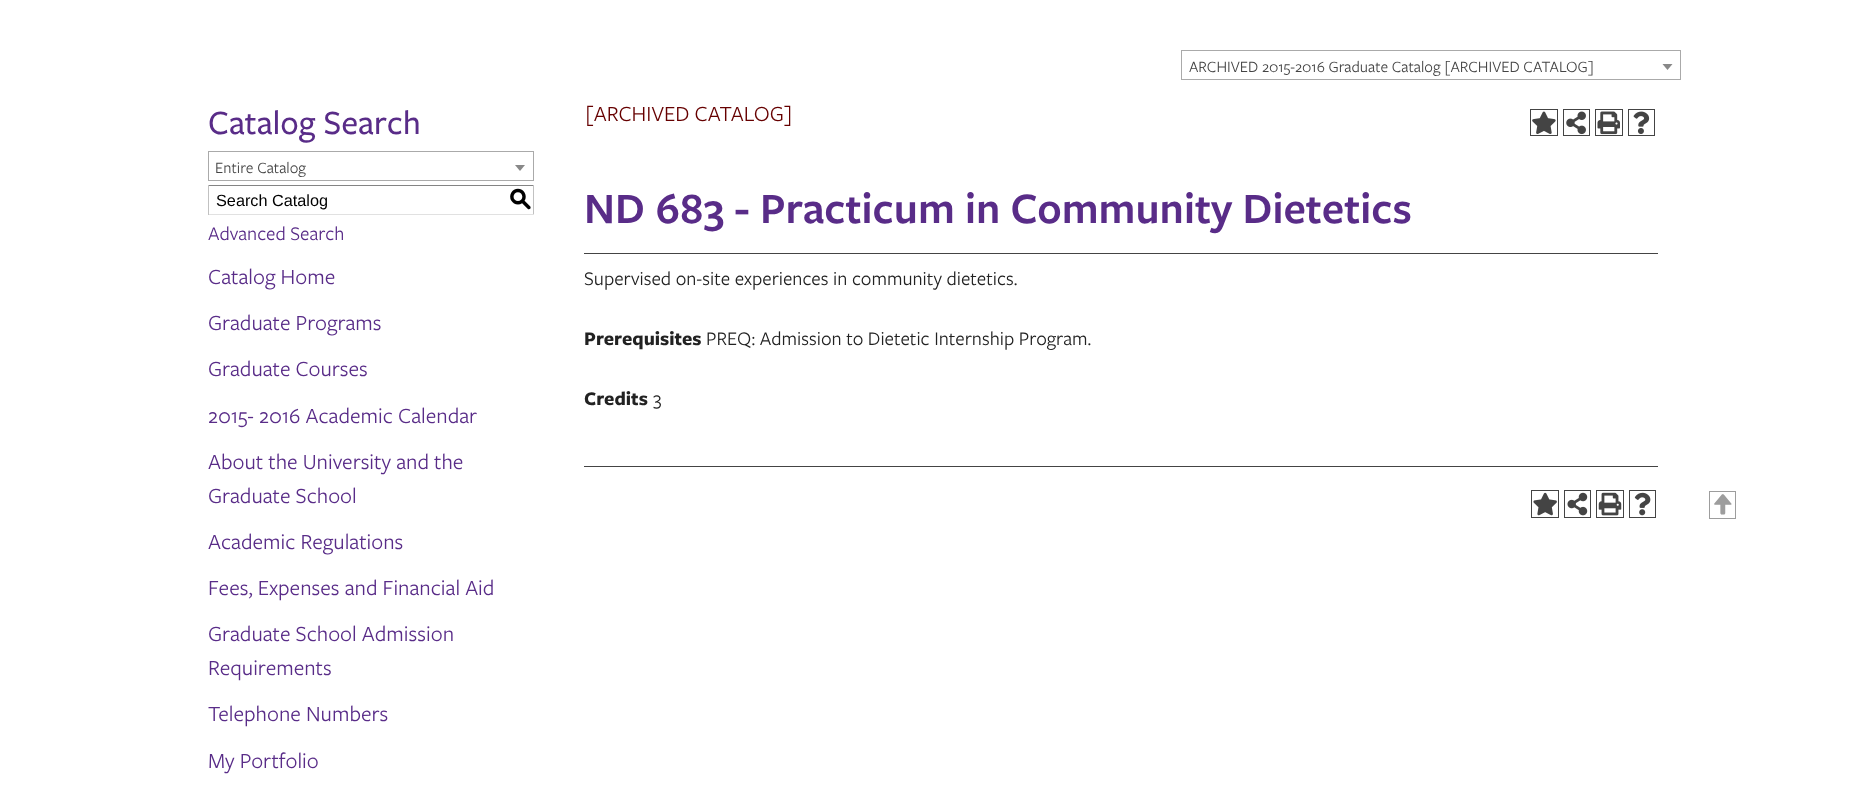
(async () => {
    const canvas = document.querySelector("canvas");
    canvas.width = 1864;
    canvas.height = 812;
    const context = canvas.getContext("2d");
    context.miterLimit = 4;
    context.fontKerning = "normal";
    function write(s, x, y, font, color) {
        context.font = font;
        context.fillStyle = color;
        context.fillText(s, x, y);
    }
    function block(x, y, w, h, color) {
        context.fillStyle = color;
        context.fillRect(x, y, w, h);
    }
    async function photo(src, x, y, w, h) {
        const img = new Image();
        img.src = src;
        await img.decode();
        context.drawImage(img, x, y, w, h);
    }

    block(0, 0, 1864, 812, "rgb(255, 255, 255)");
    context.strokeStyle = "rgb(170, 170, 170)";
    context.strokeRect(1181.5, 50.5, 499, 29);
    write("ARCHIVED 2015-2016 Graduate Catalog [ARCHIVED CATALOG]", 1189, 72, "16.25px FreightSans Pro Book", "rgb(68, 68, 68)");
    context.fillStyle = "rgb(136, 136, 136)";
    context.beginPath();
    context.moveTo(1662.5, 64);
    context.lineTo(1672.5, 64);
    context.lineTo(1667.5, 70);
    context.closePath();
    context.fill();
    write("Catalog Search", 208, 134, "500 35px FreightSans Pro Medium", "rgb(89, 44, 136)");
    context.strokeRect(208.5, 151.5, 325, 29);
    write("Entire Catalog", 215, 173, "16.25px FreightSans Pro Book", "rgb(68, 68, 68)");
    context.fillStyle = "rgb(136, 136, 136)";
    context.beginPath();
    context.moveTo(515, 165);
    context.lineTo(525, 165);
    context.lineTo(520, 171);
    context.closePath();
    context.fill();
    block(208, 185, 326, 1, "rgb(132, 132, 132)");
    block(533, 185, 1, 30, "rgb(193, 193, 193)");
    block(208, 214, 326, 1, "rgb(225, 225, 225)");
    block(208, 185, 1, 30, "rgb(193, 193, 193)");
    write("Search Catalog", 216, 206, "16.25px Liberation Sans", "rgb(0, 0, 0)");
    write("S", 509, 206, "500 22.5px 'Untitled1'", "rgb(0, 0, 0)");
    write("Advanced Search", 208, 240, "20px FreightSans Pro Book", "rgb(89, 44, 136)");
    write("Catalog Home", 208, 284, "22.5px FreightSans Pro Book", "rgb(89, 44, 136)");
    write("Graduate Programs", 208, 330, "22.5px FreightSans Pro Book", "rgb(89, 44, 136)");
    write("Graduate Courses", 208, 376, "22.5px FreightSans Pro Book", "rgb(89, 44, 136)");
    write("2015- 2016 Academic Calendar", 208, 423, "22.5px FreightSans Pro Book", "rgb(89, 44, 136)");
    write("About the University and the", 208, 469, "22.5px FreightSans Pro Book", "rgb(89, 44, 136)");
    write("Graduate School", 208, 503, "22.5px FreightSans Pro Book", "rgb(89, 44, 136)");
    write("Academic Regulations", 208, 549, "22.5px FreightSans Pro Book", "rgb(89, 44, 136)");
    write("Fees, Expenses and Financial Aid", 208, 595, "22.5px FreightSans Pro Book", "rgb(89, 44, 136)");
    write("Graduate School Admission", 208, 641, "22.5px FreightSans Pro Book", "rgb(89, 44, 136)");
    write("Requirements", 208, 675, "22.5px FreightSans Pro Book", "rgb(89, 44, 136)");
    write("Telephone Numbers", 208, 721, "22.5px FreightSans Pro Book", "rgb(89, 44, 136)");
    write("My Portfolio", 208, 768, "22.5px FreightSans Pro Book", "rgb(89, 44, 136)");
    write("[ARCHIVED CATALOG]", 585, 121, "22.5px FreightSans Pro Book", "rgb(102, 0, 0)");
    context.strokeStyle = "rgb(68, 68, 68)";
    context.strokeRect(1530.5, 109.5, 27, 26);
    await photo("media/1.png", 1532, 111, 24, 23);
    context.strokeRect(1563.5, 109.5, 26, 26);
    await photo("media/2.png", 1566, 111, 20, 24);
    context.strokeRect(1595.5, 109.5, 27, 26);
    await photo("media/3.png", 1597, 111, 23, 24);
    context.strokeRect(1628.5, 109.5, 26, 26);
    await photo("media/4.png", 1633, 111, 17, 23);
    write("ND 683 - Practicum in Community Dietetics", 584, 223, "600 45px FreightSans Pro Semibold", "rgb(89, 44, 136)");
    block(584, 253, 1074, 1, "rgb(68, 68, 68)");
    write("Supervised on-site experiences in community dietetics.", 584, 285, "20px FreightSans Pro Book", "rgb(34, 34, 34)");
    write("Prerequisites", 584, 345, "bold 20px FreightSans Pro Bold", "rgb(34, 34, 34)");
    write("PREQ: Admission to Dietetic Internship Program.", 706, 345, "20px FreightSans Pro Book", "rgb(34, 34, 34)");
    write("Credits", 584, 405, "bold 20px FreightSans Pro Bold", "rgb(34, 34, 34)");
    write("3", 653, 405, "20px FreightSans Pro Book", "rgb(34, 34, 34)");
    block(584, 466, 1074, 1, "rgb(68, 68, 68)");
    context.strokeRect(1531.5, 490.5, 27, 27);
    await photo("media/5.png", 1533, 492, 24, 24);
    context.strokeRect(1564.5, 490.5, 26, 27);
    await photo("media/6.png", 1567, 492, 21, 24);
    context.strokeRect(1596.5, 490.5, 27, 27);
    await photo("media/7.png", 1598, 492, 24, 24);
    context.strokeRect(1629.5, 490.5, 26, 27);
    await photo("media/8.png", 1634, 492, 17, 24);
    context.strokeStyle = "rgb(157, 157, 157)";
    context.strokeRect(1709.5, 491.5, 26, 27);
    write("T", 1711, 511, "500 22.5px 'Untitled1'", "rgb(157, 157, 157)");
})();
